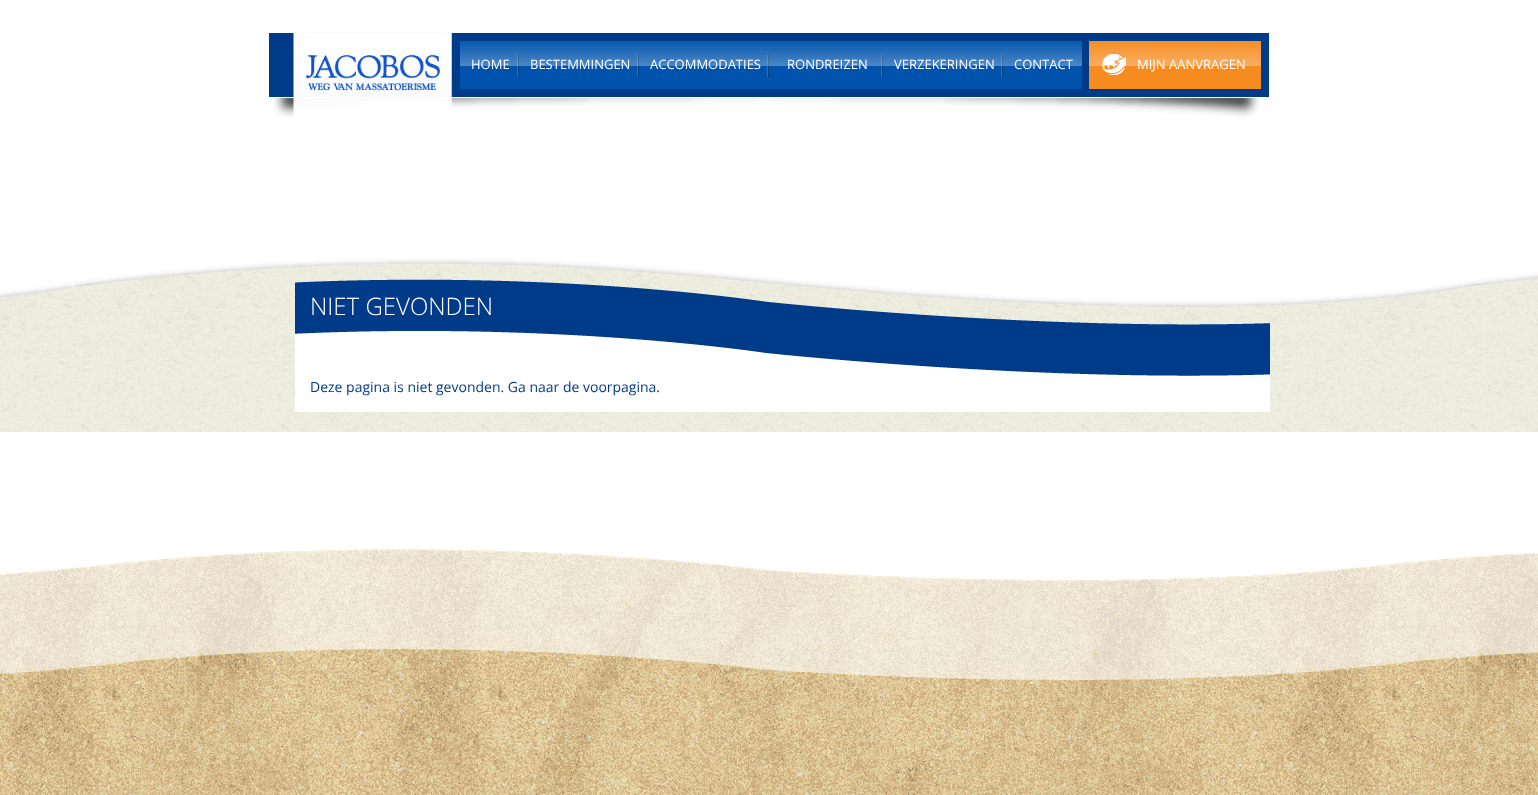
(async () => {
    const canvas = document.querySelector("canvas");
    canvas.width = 1538;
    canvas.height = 795;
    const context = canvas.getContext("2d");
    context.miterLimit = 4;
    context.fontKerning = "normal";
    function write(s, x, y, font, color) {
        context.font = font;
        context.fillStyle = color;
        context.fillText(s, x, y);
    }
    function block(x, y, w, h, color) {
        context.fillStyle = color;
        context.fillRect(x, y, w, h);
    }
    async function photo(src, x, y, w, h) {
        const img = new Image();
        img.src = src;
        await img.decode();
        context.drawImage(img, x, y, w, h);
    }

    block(0, 0, 1538, 795, "rgb(255, 255, 255)");
    context.fillStyle = "rgb(0, 59, 137)";
    context.beginPath();
    context.rect(268.5, 32.5, 1001, 65);
    context.fill();
    context.strokeStyle = "rgb(251, 251, 251)";
    context.stroke();
    await photo("media/6.png", 273, 98, 987, 19);
    await photo("media/7.png", 0, 258, 1538, 174);
    await photo("media/1.png", 293, 33, 159, 232);
    await photo("media/2.png", 460, 41, 622, 48);
    await photo("media/3.png", 517, 55, 2, 22);
    write("HOME", 471, 69, "13px Open Sans", "rgb(255, 255, 255)");
    await photo("media/3.png", 637, 55, 2, 22);
    write("BESTEMMINGEN", 530, 69, "13px Open Sans", "rgb(255, 255, 255)");
    await photo("media/3.png", 767, 55, 2, 22);
    write("ACCOMMODATIES", 650, 69, "13px Open Sans", "rgb(255, 255, 255)");
    await photo("media/3.png", 881, 55, 2, 22);
    write("RONDREIZEN", 787, 69, "13px Open Sans", "rgb(255, 255, 255)");
    await photo("media/3.png", 1001, 55, 2, 22);
    write("VERZEKERINGEN", 894, 69, "13px Open Sans", "rgb(255, 255, 255)");
    write("CONTACT", 1014, 69, "13px Open Sans", "rgb(255, 255, 255)");
    await photo("media/4.png", 1089, 41, 172, 48);
    await photo("media/5.png", 1102, 54, 24, 21);
    write("MIJN AANVRAGEN", 1137, 69, "13px Open Sans", "rgb(255, 255, 255)");
    await photo("media/8.png", 295, 279, 975, 97);
    write("NIET GEVONDEN", 310, 315, "300 24px Open Sans", "rgb(255, 255, 255)");
    block(295, 376, 975, 36, "rgb(255, 255, 255)");
    write("Deze pagina is niet gevonden. Ga naar de voorpagina.", 310, 392, "14px Open Sans", "rgb(0, 59, 137)");
    await photo("media/9.png", 0, 549, 1538, 246);
})();
